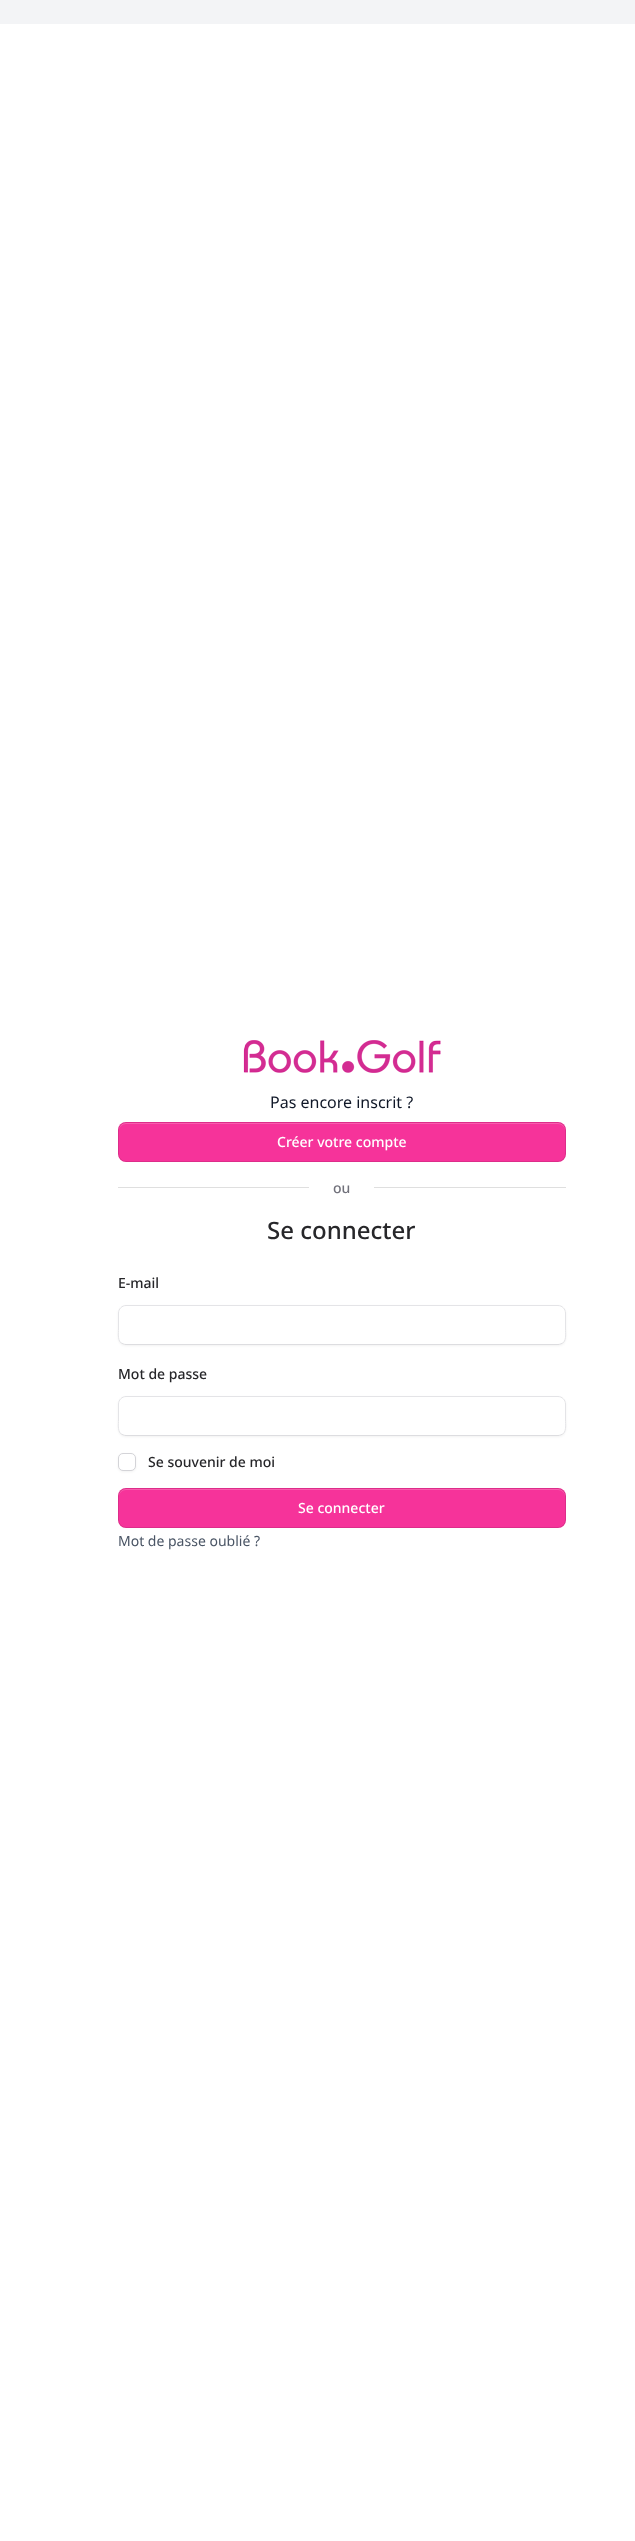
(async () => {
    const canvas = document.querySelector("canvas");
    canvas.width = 635;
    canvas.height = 2541;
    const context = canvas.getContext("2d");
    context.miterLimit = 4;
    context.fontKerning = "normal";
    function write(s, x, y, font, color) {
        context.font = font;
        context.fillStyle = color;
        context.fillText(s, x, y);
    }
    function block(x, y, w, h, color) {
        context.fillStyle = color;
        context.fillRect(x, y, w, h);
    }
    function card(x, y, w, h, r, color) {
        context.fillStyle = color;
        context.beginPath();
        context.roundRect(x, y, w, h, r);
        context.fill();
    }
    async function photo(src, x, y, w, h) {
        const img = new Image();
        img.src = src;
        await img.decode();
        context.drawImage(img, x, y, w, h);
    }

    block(0, 0, 635, 2541, "rgb(243, 244, 246)");
    block(0, 24, 635, 2517, "rgb(255, 255, 255)");
    await photo("media/1.png", 243, 1040, 198, 33);
    write("Pas encore inscrit ?", 270, 1108, "16px Noto Sans", "rgb(16, 24, 40)");
    card(118, 1122, 448, 40, 8, "rgb(246, 51, 154)");
    context.fillStyle = "rgb(248, 92, 174)";
    context.beginPath();
    context.moveTo(126, 1124);
    context.lineTo(558, 1124);
    context.bezierCurveTo(562, 1124, 565, 1127, 565, 1131);
    context.lineTo(565, 1130);
    context.bezierCurveTo(565, 1126, 562, 1123, 558, 1123);
    context.lineTo(126, 1123);
    context.bezierCurveTo(122, 1123, 119, 1126, 119, 1130);
    context.lineTo(119, 1131);
    context.bezierCurveTo(119, 1127, 122, 1124, 126, 1124);
    context.closePath();
    context.fill();
    context.beginPath();
    context.roundRect(118.5, 1122.5, 447, 39, 7.5);
    context.strokeStyle = "rgba(0, 0, 0, 0.1)";
    context.stroke();
    write("Créer votre compte", 277, 1147, "500 14px Noto Sans", "rgb(255, 255, 255)");
    block(118, 1187, 191, 1, "rgb(223, 223, 223)");
    write("ou", 333, 1193, "500 14px Noto Sans", "rgb(113, 113, 123)");
    block(374, 1187, 192, 1, "rgb(223, 223, 223)");
    write("Se connecter", 267, 1239, "500 24px Noto Sans", "rgb(39, 39, 42)");
    write("E-mail", 118, 1288, "500 14px Noto Sans", "rgb(39, 39, 42)");
    context.fillStyle = "rgba(0, 0, 0, 0.05)";
    context.filter = "blur(1px)";
    context.beginPath();
    context.roundRect(118, 1306, 448, 40, 8);
    context.fill();
    context.filter = "none";
    card(118, 1305, 448, 40, 8, "rgb(255, 255, 255)");
    context.beginPath();
    context.moveTo(563.5, 1342.5);
    context.bezierCurveTo(562, 1343.5, 560, 1344.5, 558, 1344.5);
    context.lineTo(126, 1344.5);
    context.bezierCurveTo(124, 1344.5, 122, 1343.5, 120.5, 1342.5);
    context.strokeStyle = "rgb(221, 221, 224)";
    context.stroke();
    context.beginPath();
    context.moveTo(120.5, 1342.5);
    context.bezierCurveTo(117.5, 1339, 118.5, 1333, 118.5, 1329);
    context.lineTo(118.5, 1313);
    context.bezierCurveTo(118.5, 1309, 122, 1305.5, 126, 1305.5);
    context.lineTo(558, 1305.5);
    context.bezierCurveTo(562, 1305.5, 565.5, 1309, 565.5, 1313);
    context.lineTo(565.5, 1329);
    context.bezierCurveTo(565.5, 1333, 566.5, 1339, 563.5, 1342.5);
    context.strokeStyle = "rgb(228, 228, 231)";
    context.stroke();
    write("Mot de passe", 118, 1379, "500 14px Noto Sans", "rgb(39, 39, 42)");
    context.fillStyle = "rgba(0, 0, 0, 0.05)";
    context.filter = "blur(1px)";
    context.beginPath();
    context.roundRect(118, 1397, 448, 40, 8);
    context.fill();
    context.filter = "none";
    card(118, 1396, 448, 40, 8, "rgb(255, 255, 255)");
    context.beginPath();
    context.moveTo(563.5, 1433.5);
    context.bezierCurveTo(562, 1434.5, 560, 1435.5, 558, 1435.5);
    context.lineTo(126, 1435.5);
    context.bezierCurveTo(124, 1435.5, 122, 1434.5, 120.5, 1433.5);
    context.strokeStyle = "rgb(221, 221, 224)";
    context.stroke();
    context.beginPath();
    context.moveTo(120.5, 1433.5);
    context.bezierCurveTo(117.5, 1430, 118.5, 1424, 118.5, 1420);
    context.lineTo(118.5, 1404);
    context.bezierCurveTo(118.5, 1400, 122, 1396.5, 126, 1396.5);
    context.lineTo(558, 1396.5);
    context.bezierCurveTo(562, 1396.5, 565.5, 1400, 565.5, 1404);
    context.lineTo(565.5, 1420);
    context.bezierCurveTo(565.5, 1424, 566.5, 1430, 563.5, 1433.5);
    context.strokeStyle = "rgb(228, 228, 231)";
    context.stroke();
    context.fillStyle = "rgba(0, 0, 0, 0.05)";
    context.filter = "blur(1px)";
    context.beginPath();
    context.roundRect(118, 1454, 18, 18, 5);
    context.fill();
    context.filter = "none";
    context.fillStyle = "rgb(255, 255, 255)";
    context.beginPath();
    context.roundRect(118.5, 1453.5, 17, 17, 4.5);
    context.fill();
    context.strokeStyle = "rgb(212, 212, 216)";
    context.stroke();
    write("Se souvenir de moi", 148, 1467, "500 14px Noto Sans", "rgb(39, 39, 42)");
    card(118, 1488, 448, 40, 8, "rgb(246, 51, 154)");
    context.fillStyle = "rgb(248, 92, 174)";
    context.beginPath();
    context.moveTo(126, 1490);
    context.lineTo(558, 1490);
    context.bezierCurveTo(562, 1490, 565, 1493, 565, 1497);
    context.lineTo(565, 1496);
    context.bezierCurveTo(565, 1492, 562, 1489, 558, 1489);
    context.lineTo(126, 1489);
    context.bezierCurveTo(122, 1489, 119, 1492, 119, 1496);
    context.lineTo(119, 1497);
    context.bezierCurveTo(119, 1493, 122, 1490, 126, 1490);
    context.closePath();
    context.fill();
    context.beginPath();
    context.roundRect(118.5, 1488.5, 447, 39, 7.5);
    context.strokeStyle = "rgba(0, 0, 0, 0.1)";
    context.stroke();
    write("Se connecter", 298, 1513, "500 14px Noto Sans", "rgb(255, 255, 255)");
    write("Mot de passe oublié ?", 118, 1546, "14px Noto Sans", "rgb(74, 85, 101)");
})();
